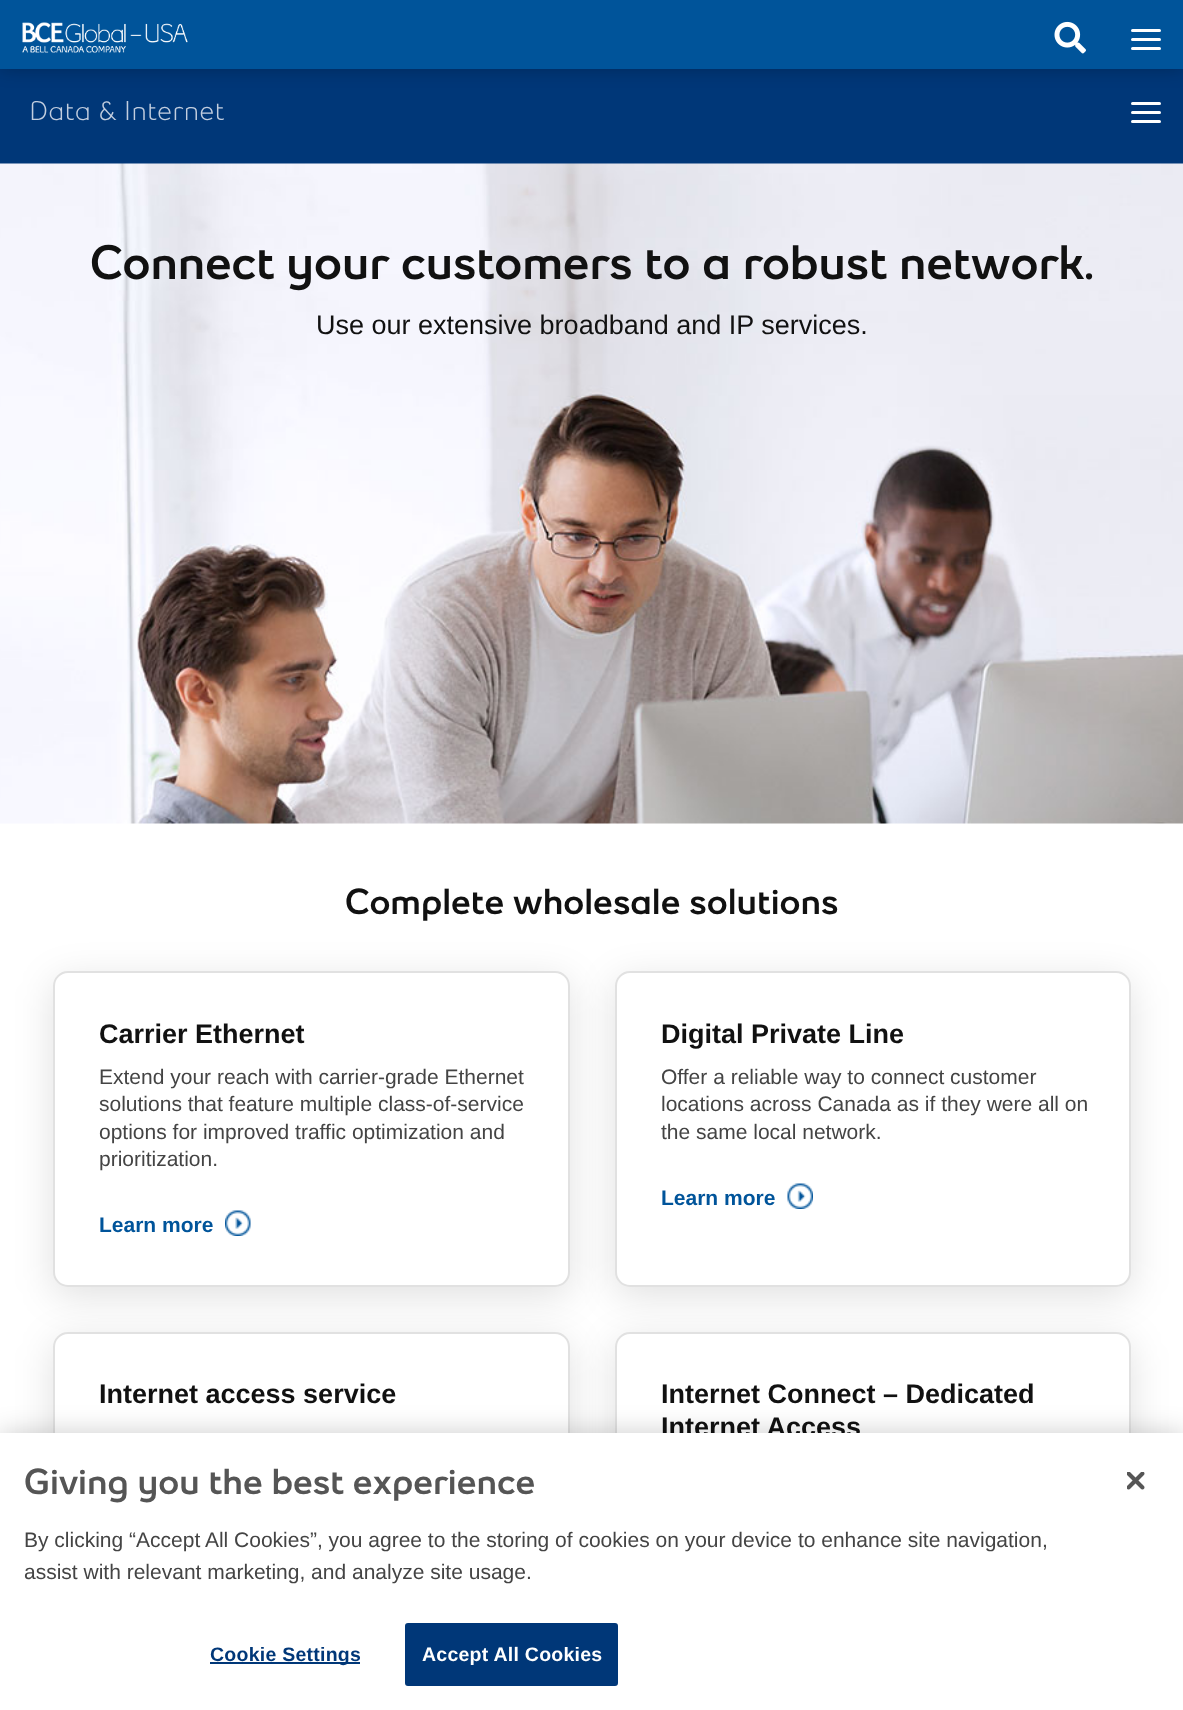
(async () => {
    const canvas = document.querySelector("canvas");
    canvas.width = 1183;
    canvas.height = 1710;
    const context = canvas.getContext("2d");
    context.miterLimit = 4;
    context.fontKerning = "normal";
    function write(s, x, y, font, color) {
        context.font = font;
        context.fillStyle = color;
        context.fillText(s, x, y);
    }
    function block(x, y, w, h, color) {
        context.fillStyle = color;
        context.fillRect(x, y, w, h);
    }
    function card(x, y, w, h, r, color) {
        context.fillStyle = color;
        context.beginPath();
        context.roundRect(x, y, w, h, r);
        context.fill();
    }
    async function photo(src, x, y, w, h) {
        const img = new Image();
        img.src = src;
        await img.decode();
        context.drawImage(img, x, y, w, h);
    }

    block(0, 0, 1183, 1710, "rgb(255, 255, 255)");
    block(0, 69, 1183, 95, "rgb(0, 55, 120)");
    context.fillStyle = "rgba(0, 0, 0, 0.25)";
    context.filter = "blur(9px)";
    context.beginPath();
    context.rect(0, 0, 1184, 69);
    context.fill();
    context.filter = "none";
    block(0, 0, 1183, 69, "rgb(0, 84, 154)");
    await photo("media/1.png", 1054, 21, 32, 33);
    await photo("media/2.png", 22, 22, 166, 31);
    card(1131, 38, 30, 3, 1.5, "rgb(255, 255, 255)");
    card(1131, 29, 30, 3, 1.5, "rgb(255, 255, 255)");
    card(1131, 47, 30, 3, 1.5, "rgb(255, 255, 255)");
    write("Data & Internet", 29, 120, "500 27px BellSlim", "rgb(194, 206, 223)");
    card(1131, 111, 30, 3, 1.5, "rgb(255, 255, 255)");
    card(1131, 102, 30, 3, 1.5, "rgb(255, 255, 255)");
    card(1131, 120, 30, 3, 1.5, "rgb(255, 255, 255)");
    await photo("media/3.png", 0, 163, 1183, 661);
    write("Connect your customers to a robust network.", 90, 279, "900 48px BellSlim", "rgb(17, 17, 17)");
    write("Use our extensive broadband and IP services.", 316, 334, "27px Liberation Sans", "rgb(17, 17, 17)");
    write("Complete wholesale solutions", 345, 914, "900 36px BellSlim", "rgb(17, 17, 17)");
    context.fillStyle = "rgba(0, 0, 0, 0.12)";
    context.filter = "blur(19px)";
    context.beginPath();
    context.roundRect(53, 980, 517, 316, 15);
    context.fill();
    context.filter = "none";
    context.fillStyle = "rgb(255, 255, 255)";
    context.beginPath();
    context.roundRect(54, 972, 515, 314, 14);
    context.fill();
    context.strokeStyle = "rgb(225, 225, 225)";
    context.lineWidth = 2;
    context.stroke();
    write("Carrier Ethernet", 99, 1043, "bold 27px Liberation Sans", "rgb(17, 17, 17)");
    write("Extend your reach with carrier-grade Ethernet", 99, 1084, "21px Liberation Sans", "rgb(68, 68, 68)");
    write("solutions that feature multiple class-of-service", 99, 1111, "21px Liberation Sans", "rgb(68, 68, 68)");
    write("options for improved traffic optimization and", 99, 1139, "21px Liberation Sans", "rgb(68, 68, 68)");
    write("prioritization.", 99, 1166, "21px Liberation Sans", "rgb(68, 68, 68)");
    await photo("media/4.png", 225, 1210, 26, 26);
    write("Learn more", 99, 1232, "bold 21px Liberation Sans", "rgb(0, 84, 154)");
    context.fillStyle = "rgba(0, 0, 0, 0.12)";
    context.filter = "blur(19px)";
    context.beginPath();
    context.roundRect(615, 980, 516, 316, 15);
    context.fill();
    context.filter = "none";
    context.fillStyle = "rgb(255, 255, 255)";
    context.beginPath();
    context.roundRect(616, 972, 514, 314, 14);
    context.fill();
    context.stroke();
    write("Digital Private Line", 661, 1043, "bold 27px Liberation Sans", "rgb(17, 17, 17)");
    write("Offer a reliable way to connect customer", 661, 1084, "21px Liberation Sans", "rgb(68, 68, 68)");
    write("locations across Canada as if they were all on", 661, 1111, "21px Liberation Sans", "rgb(68, 68, 68)");
    write("the same local network.", 661, 1139, "21px Liberation Sans", "rgb(68, 68, 68)");
    await photo("media/5.png", 787, 1183, 26, 26);
    write("Learn more", 661, 1205, "bold 21px Liberation Sans", "rgb(0, 84, 154)");
    context.fillStyle = "rgba(0, 0, 0, 0.12)";
    context.filter = "blur(19px)";
    context.beginPath();
    context.roundRect(53, 1341, 517, 321, 15);
    context.fill();
    context.filter = "none";
    context.fillStyle = "rgb(255, 255, 255)";
    context.beginPath();
    context.roundRect(54, 1333, 515, 319, 14);
    context.fill();
    context.stroke();
    write("Internet access service", 99, 1403, "bold 27px Liberation Sans", "rgb(17, 17, 17)");
    context.fillStyle = "rgba(0, 0, 0, 0.12)";
    context.filter = "blur(19px)";
    context.beginPath();
    context.roundRect(615, 1341, 516, 321, 15);
    context.fill();
    context.filter = "none";
    context.fillStyle = "rgb(255, 255, 255)";
    context.beginPath();
    context.roundRect(616, 1333, 514, 319, 14);
    context.fill();
    context.stroke();
    write("Internet Connect – Dedicated", 661, 1403, "bold 27px Liberation Sans", "rgb(17, 17, 17)");
    write("Internet Access", 661, 1436, "bold 27px Liberation Sans", "rgb(17, 17, 17)");
    context.fillStyle = "rgba(0, 0, 0, 0.2)";
    context.filter = "blur(13.5px)";
    context.beginPath();
    context.rect(0, 1433, 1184, 277);
    context.fill();
    context.filter = "none";
    block(0, 1433, 1183, 277, "rgb(255, 255, 255)");
    write("Giving you the best experience", 24, 1494, "900 36px BellSlim", "rgb(85, 85, 85)");
    write("By clicking “Accept All Cookies”, you agree to the storing of cookies on your device to enhance site navigation,", 24, 1547, "21px Liberation Sans", "rgb(68, 68, 68)");
    write("assist with relevant marketing, and analyze site usage.", 24, 1579, "21px Liberation Sans", "rgb(68, 68, 68)");
    block(210, 1662, 150, 2, "rgb(0, 55, 120)");
    context.letterSpacing = "0.25px";
    write("Cookie Settings", 210, 1661, "bold 19.5px Liberation Sans", "rgb(0, 55, 120)");
    context.beginPath();
    context.roundRect(406, 1624, 211, 61, 2);
    context.fill();
    context.strokeStyle = "rgb(0, 55, 120)";
    context.stroke();
    write("Accept All Cookies", 422, 1661, "bold 19.5px Liberation Sans", "rgb(255, 255, 255)");
    await photo("media/6.png", 1127, 1472, 18, 18);
})();
